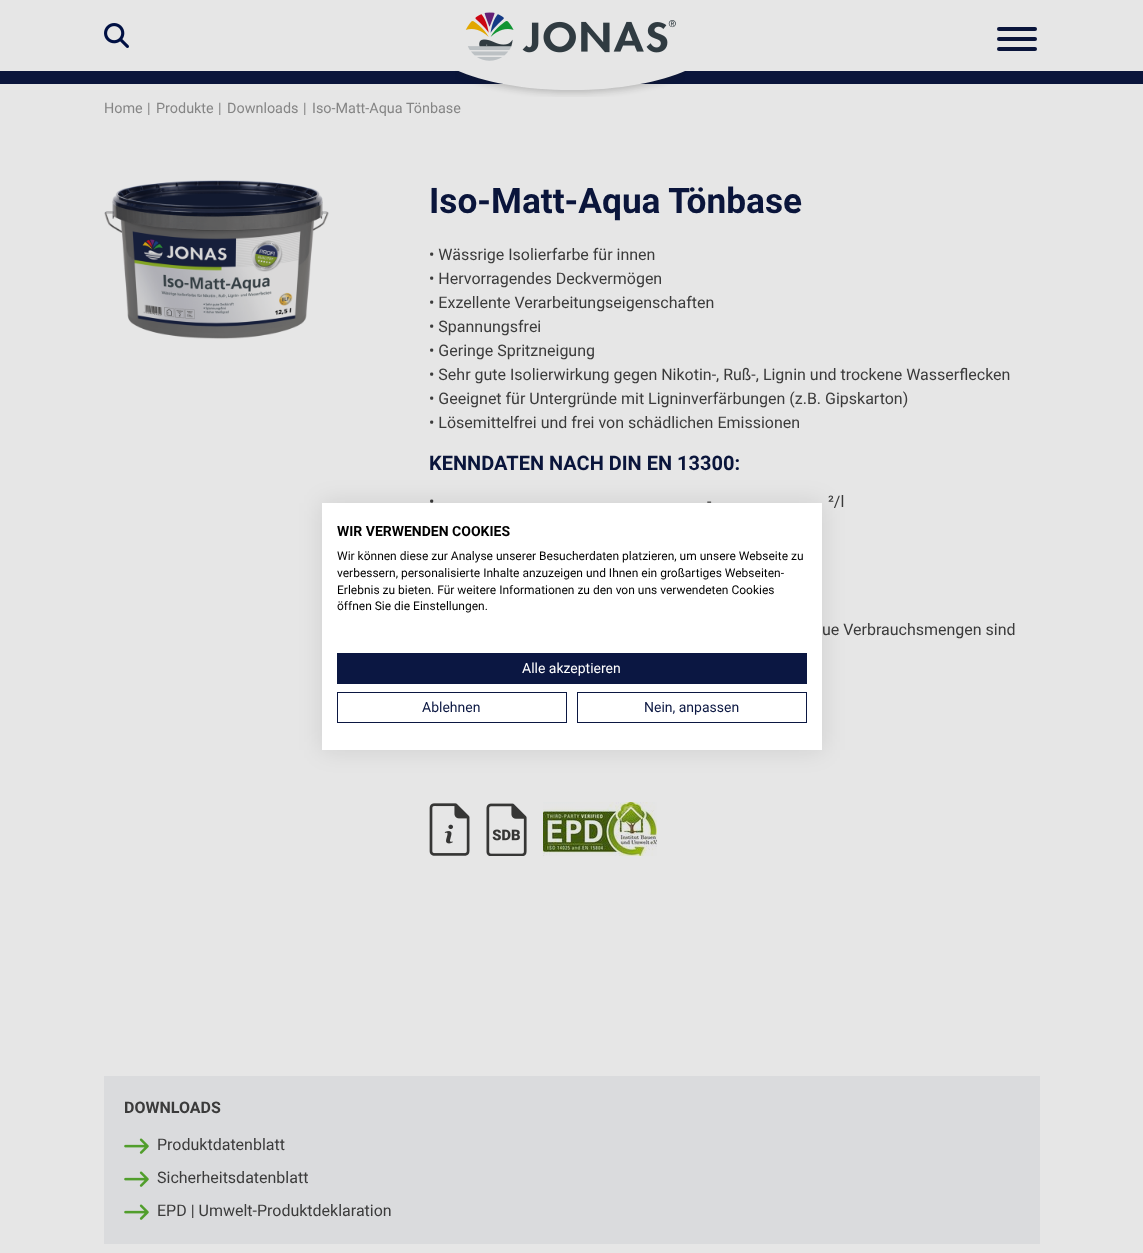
(async () => {
    const canvas = document.querySelector("canvas");
    canvas.width = 1143;
    canvas.height = 1253;
    const context = canvas.getContext("2d");
    context.miterLimit = 4;
    context.fontKerning = "normal";
    function write(s, x, y, font, color) {
        context.font = font;
        context.fillStyle = color;
        context.fillText(s, x, y);
    }
    function block(x, y, w, h, color) {
        context.fillStyle = color;
        context.fillRect(x, y, w, h);
    }
    function card(x, y, w, h, r, color) {
        context.fillStyle = color;
        context.beginPath();
        context.roundRect(x, y, w, h, r);
        context.fill();
    }
    async function photo(src, x, y, w, h) {
        const img = new Image();
        img.src = src;
        await img.decode();
        context.drawImage(img, x, y, w, h);
    }

    block(0, 0, 1143, 1253, "rgb(230, 230, 230)");
    block(0, 71, 1143, 13, "rgb(10, 21, 59)");
    await photo("media/1.png", 104, 23, 25, 25);
    await photo("media/2.png", 465, 12, 211, 49);
    await photo("media/3.png", 455, 70, 230, 27);
    card(997, 47, 40, 4, 2, "rgb(10, 21, 59)");
    card(997, 27, 40, 4, 2, "rgb(10, 21, 59)");
    card(997, 37, 40, 4, 2, "rgb(10, 21, 59)");
    write("Home", 104, 113, "14.4px Roboto", "rgb(133, 133, 133)");
    write("|", 147, 113, "14.4px Roboto", "rgb(133, 133, 133)");
    write("Produkte", 156, 113, "14.4px Roboto", "rgb(133, 133, 133)");
    write("|", 218, 113, "14.4px Roboto", "rgb(133, 133, 133)");
    write("Downloads", 227, 113, "14.4px Roboto", "rgb(133, 133, 133)");
    write("|", 303, 113, "14.4px Roboto", "rgb(133, 133, 133)");
    write("Iso-Matt-Aqua Tönbase", 312, 113, "14.4px Roboto", "rgb(133, 133, 133)");
    await photo("media/4.png", 104, 180, 225, 159);
    write("Iso-Matt-Aqua Tönbase", 429, 213, "bold 35.25px Roboto", "rgb(10, 21, 59)");
    write("• Wässrige Isolierfarbe für innen", 429, 260, "16px Roboto", "rgb(59, 59, 59)");
    write("• Hervorragendes Deckvermögen", 429, 284, "16px Roboto", "rgb(59, 59, 59)");
    write("• Exzellente Verarbeitungseigenschaften", 429, 308, "16px Roboto", "rgb(59, 59, 59)");
    write("• Spannungsfrei", 429, 332, "16px Roboto", "rgb(59, 59, 59)");
    write("• Geringe Spritzneigung", 429, 356, "16px Roboto", "rgb(59, 59, 59)");
    write("• Sehr gute Isolierwirkung gegen Nikotin-, Ruß-, Lignin und trockene Wasserflecken", 429, 380, "16px Roboto", "rgb(59, 59, 59)");
    write("• Geeignet für Untergründe mit Ligninverfärbungen (z.B. Gipskarton)", 429, 404, "16px Roboto", "rgb(59, 59, 59)");
    write("• Lösemittelfrei und frei von schädlichen Emissionen", 429, 428, "16px Roboto", "rgb(59, 59, 59)");
    write("KENNDATEN NACH DIN EN 13300:", 429, 470, "bold 20px Roboto", "rgb(10, 21, 59)");
    write("•", 429, 507, "16px Roboto", "rgb(59, 59, 59)");
    write("-", 707, 507, "16px Roboto", "rgb(59, 59, 59)");
    write("²/l", 828, 507, "16px Roboto", "rgb(59, 59, 59)");
    write("ue Verbrauchsmengen sind", 822, 635, "16px Roboto", "rgb(59, 59, 59)");
    await photo("media/5.png", 429, 803, 41, 53);
    await photo("media/6.png", 486, 803, 41, 53);
    await photo("media/7.png", 543, 802, 114, 54);
    block(104, 1076, 936, 168, "rgb(218, 219, 221)");
    write("DOWNLOADS", 124, 1113, "bold 16px Roboto", "rgb(59, 59, 59)");
    await photo("media/8.png", 124, 1138, 25, 16);
    write("Produktdatenblatt", 157, 1150, "16px Roboto", "rgb(59, 59, 59)");
    await photo("media/8.png", 124, 1171, 25, 16);
    write("Sicherheitsdatenblatt", 157, 1183, "16px Roboto", "rgb(59, 59, 59)");
    await photo("media/8.png", 124, 1204, 25, 16);
    write("EPD | Umwelt-Produktdeklaration", 157, 1216, "16px Roboto", "rgb(59, 59, 59)");
    context.fillStyle = "rgba(0, 0, 0, 0.1)";
    context.filter = "blur(12px)";
    context.beginPath();
    context.rect(322, 503, 500, 247);
    context.fill();
    context.filter = "none";
    block(322, 503, 500, 247, "rgb(255, 255, 255)");
    write("WIR VERWENDEN COOKIES", 337, 536, "bold 14px Roboto", "rgb(0, 0, 0)");
    write("Wir können diese zur Analyse unserer Besucherdaten platzieren, um unsere Webseite zu", 337, 560, "12px Roboto", "rgb(0, 0, 0)");
    write("verbessern, personalisierte Inhalte anzuzeigen und Ihnen ein großartiges Webseiten-", 337, 577, "12px Roboto", "rgb(0, 0, 0)");
    write("Erlebnis zu bieten. Für weitere Informationen zu den von uns verwendeten Cookies", 337, 594, "12px Roboto", "rgb(0, 0, 0)");
    write("öffnen Sie die Einstellungen.", 337, 610, "12px Roboto", "rgb(0, 0, 0)");
    block(337, 653, 470, 31, "rgb(11, 23, 66)");
    write("Alle akzeptieren", 522, 673, "14px Roboto", "rgb(255, 255, 255)");
    context.strokeStyle = "rgb(11, 23, 66)";
    context.strokeRect(337.5, 692.5, 229, 30);
    write("Ablehnen", 422, 712, "14px Roboto", "rgb(11, 23, 66)");
    context.strokeRect(577.5, 692.5, 229, 30);
    write("Nein, anpassen", 644, 712, "14px Roboto", "rgb(11, 23, 66)");
})();
